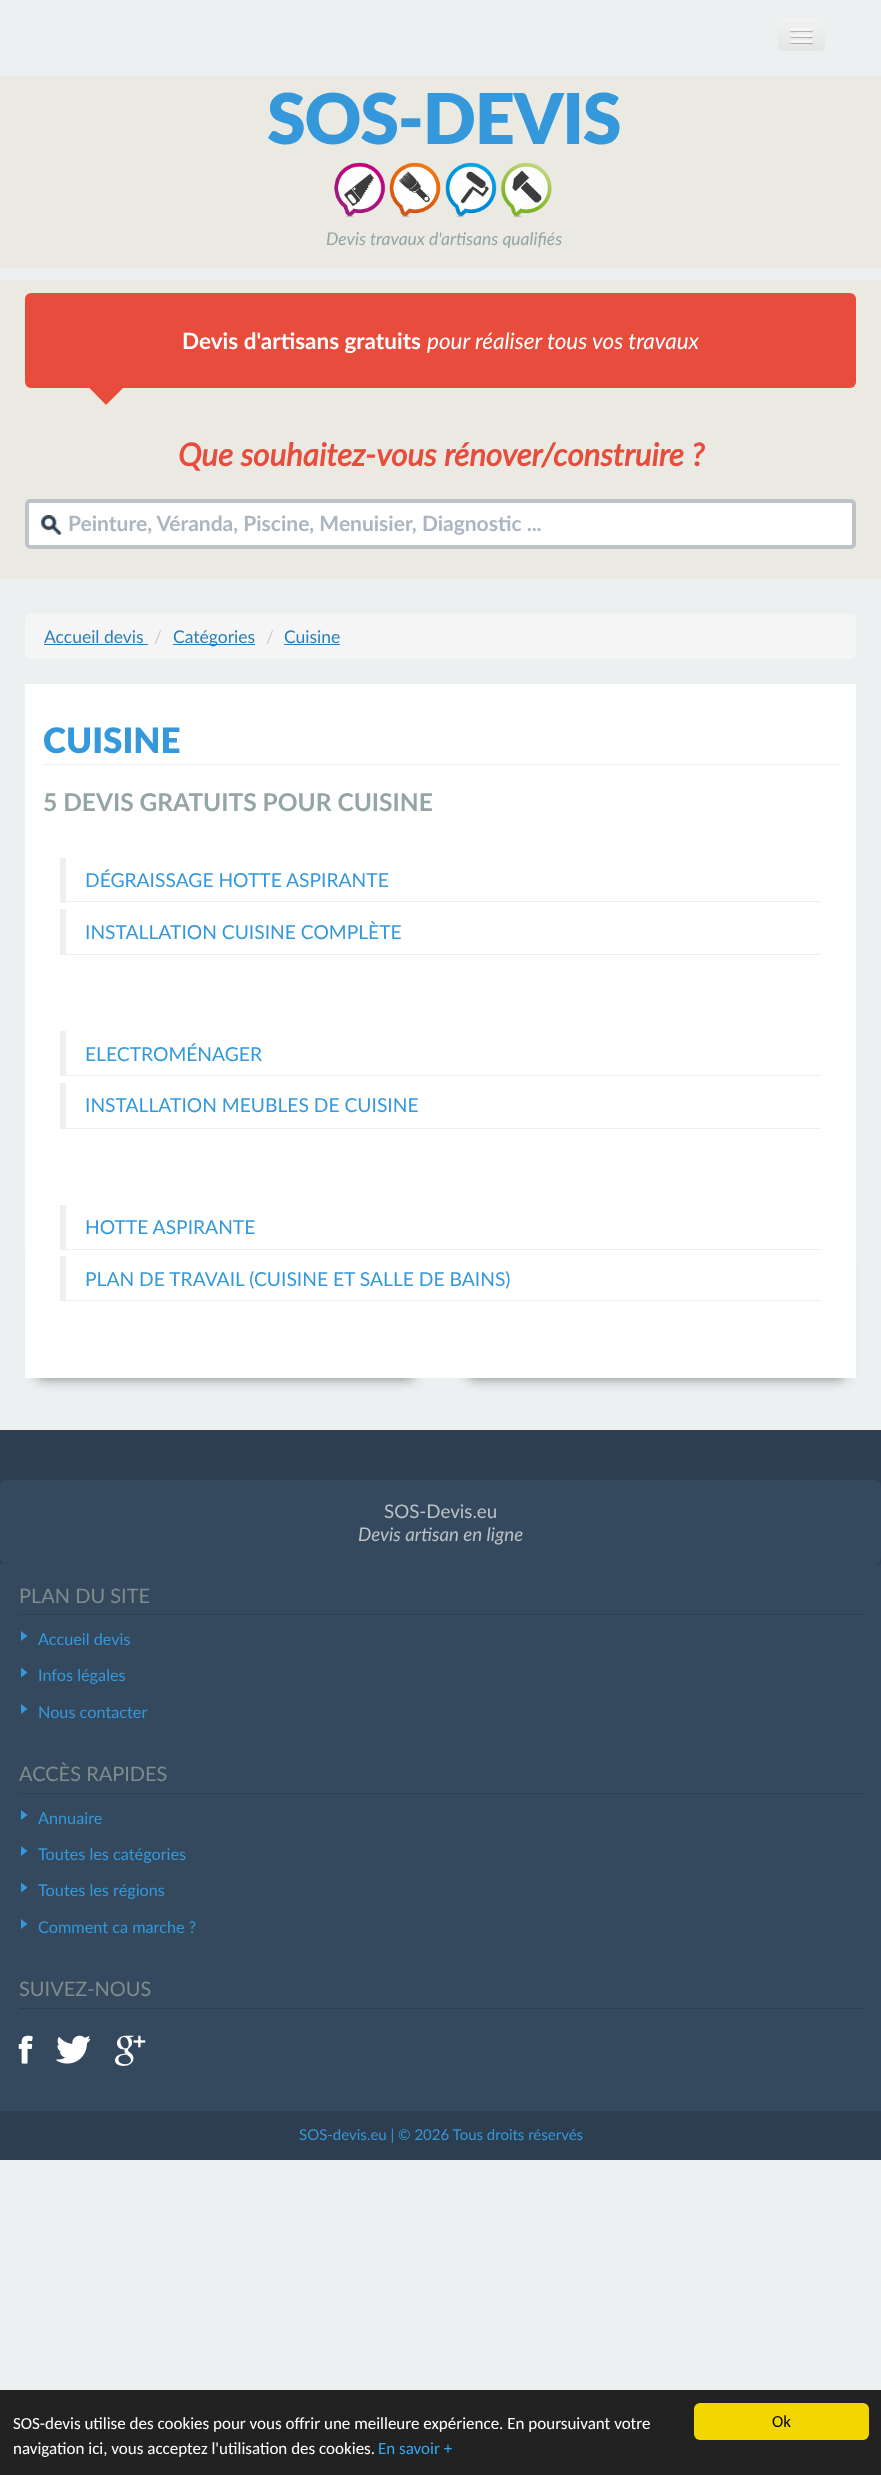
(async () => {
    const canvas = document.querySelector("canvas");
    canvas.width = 881;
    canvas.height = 2475;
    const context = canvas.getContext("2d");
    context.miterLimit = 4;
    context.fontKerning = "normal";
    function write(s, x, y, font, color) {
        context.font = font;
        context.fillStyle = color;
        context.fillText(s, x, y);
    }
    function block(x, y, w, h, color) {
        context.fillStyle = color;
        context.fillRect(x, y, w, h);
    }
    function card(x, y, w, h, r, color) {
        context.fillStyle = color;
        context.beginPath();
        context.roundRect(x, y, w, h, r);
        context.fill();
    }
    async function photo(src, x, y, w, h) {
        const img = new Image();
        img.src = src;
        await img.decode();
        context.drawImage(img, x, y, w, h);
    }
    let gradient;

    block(0, 0, 881, 2475, "rgb(236, 240, 241)");
    gradient = context.createLinearGradient(801, 19, 801, 51);
    gradient.addColorStop(0, "rgb(242, 242, 242)");
    gradient.addColorStop(1, "rgb(229, 229, 229)");
    context.fillStyle = gradient;
    context.beginPath();
    context.roundRect(778, 19, 47, 32, 5);
    context.fill();
    context.fillStyle = "rgb(178, 178, 178)";
    context.beginPath();
    context.moveTo(790.5, 29.5);
    context.lineTo(790, 31);
    context.bezierCurveTo(790.5, 33, 794, 32, 795, 32);
    context.lineTo(808, 32);
    context.bezierCurveTo(809.5, 32, 813, 33, 813, 30.5);
    context.lineTo(812.5, 29.5);
    context.lineTo(811.5, 30);
    context.bezierCurveTo(809.5, 30.5, 791, 30.5, 790.5, 29.5);
    context.closePath();
    context.fill();
    card(790, 28, 23, 3, 1.5, "rgb(245, 245, 245)");
    context.fillStyle = "rgb(176, 176, 176)";
    context.beginPath();
    context.moveTo(790, 35.5);
    context.bezierCurveTo(788.5, 38.5, 794.5, 38, 795, 38);
    context.lineTo(808, 38);
    context.bezierCurveTo(809, 38, 812.5, 39, 813, 37);
    context.bezierCurveTo(813, 36.5, 813, 35.5, 812.5, 35.5);
    context.lineTo(811.5, 36);
    context.lineTo(791, 36);
    context.closePath();
    context.fill();
    card(790, 34, 23, 3, 1.5, "rgb(245, 245, 245)");
    context.fillStyle = "rgb(174, 174, 174)";
    context.beginPath();
    context.moveTo(790, 42);
    context.bezierCurveTo(789, 44.5, 794, 44, 795, 44);
    context.lineTo(808, 44);
    context.bezierCurveTo(809, 44, 812.5, 45, 813, 43);
    context.bezierCurveTo(813, 42.5, 813, 41.5, 812.5, 41.5);
    context.bezierCurveTo(812.5, 42, 812, 42.5, 811, 42.5);
    context.lineTo(791, 42.5);
    context.bezierCurveTo(791, 42.5, 790.5, 42, 790, 42);
    context.closePath();
    context.fill();
    card(790, 40, 23, 3, 1.5, "rgb(245, 245, 245)");
    block(0, 76, 881, 192, "rgb(234, 234, 226)");
    context.letterSpacing = "-1.25px";
    write("SOS-DEVIS", 267, 144, "900 70px Lato", "rgb(52, 152, 219)");
    await photo("media/1.png", 334, 162, 218, 56);
    context.letterSpacing = "0px";
    write("Devis travaux d'artisans qualifiés", 326, 245, "italic 17.5px Lato", "rgb(149, 165, 166)");
    block(0, 280, 881, 299, "rgb(234, 234, 226)");
    card(25, 293, 831, 95, 6, "rgb(231, 76, 60)");
    write("Devis d'artisans gratuits", 182, 349, "bold 22.5px Lato", "rgb(255, 255, 255)");
    write("pour réaliser tous vos travaux", 427, 349, "italic 22.5px Lato", "rgb(255, 255, 255)");
    context.fillStyle = "rgb(231, 76, 60)";
    context.beginPath();
    context.moveTo(87.5, 386);
    context.lineTo(125, 386);
    context.lineTo(106, 405);
    context.closePath();
    context.fill();
    write("Que souhaitez-vous rénover/construire ?", 178, 466, "italic bold 31.5px Lato", "rgb(231, 76, 60)");
    card(25, 499, 831, 50, 5, "rgb(255, 255, 255)");
    await photo("media/2.png", 41, 515, 21, 20);
    context.beginPath();
    context.roundRect(27, 501, 827, 46, 3);
    context.strokeStyle = "rgb(189, 195, 199)";
    context.lineWidth = 4;
    context.stroke();
    write("Peinture, Véranda, Piscine, Menuisier, Diagnostic ...", 68, 531, "bold 21px Lato", "rgb(172, 182, 192)");
    card(25, 614, 831, 45, 5, "rgb(245, 245, 245)");
    write("Accueil devis", 44, 643, "17.5px Lato", "rgb(41, 128, 185)");
    block(44, 644, 104, 1, "rgb(41, 128, 185)");
    write("/", 154, 643, "17.5px Lato", "rgb(204, 204, 204)");
    block(173, 644, 82, 1, "rgb(41, 128, 185)");
    write("Catégories", 173, 643, "17.5px Lato", "rgb(41, 128, 185)");
    write("/", 266, 643, "17.5px Lato", "rgb(204, 204, 204)");
    write("Cuisine", 284, 643, "17.5px Lato", "rgb(41, 128, 185)");
    block(284, 644, 56, 1, "rgb(41, 128, 185)");
    context.fillStyle = "rgb(119, 119, 119)";
    context.filter = "blur(6.5px)";
    context.beginPath();
    context.rect(38, 1258, 375, 120);
    context.fill();
    context.filter = "none";
    context.filter = "blur(6.5px)";
    context.beginPath();
    context.rect(469, 1258, 375, 120);
    context.fill();
    context.filter = "none";
    block(25, 684, 831, 694, "rgb(255, 255, 255)");
    block(43, 764, 796, 1, "rgb(236, 240, 241)");
    write("CUISINE", 43, 753, "900 35px Lato", "rgb(52, 152, 219)");
    write("5 DEVIS GRATUITS POUR CUISINE", 43, 811, "bold 24.5px Lato", "rgb(149, 165, 166)");
    block(60, 901, 761, 1, "rgb(236, 240, 241)");
    block(60, 858, 6, 45, "rgb(236, 240, 241)");
    write("DÉGRAISSAGE HOTTE ASPIRANTE", 85, 887, "19.25px Lato", "rgb(52, 152, 219)");
    block(60, 954, 761, 1, "rgb(236, 240, 241)");
    block(60, 909, 6, 46, "rgb(236, 240, 241)");
    write("INSTALLATION CUISINE COMPLÈTE", 85, 939, "19.25px Lato", "rgb(52, 152, 219)");
    block(60, 1075, 761, 1, "rgb(236, 240, 241)");
    block(60, 1031, 6, 45, "rgb(236, 240, 241)");
    write("ELECTROMÉNAGER", 85, 1061, "19.25px Lato", "rgb(52, 152, 219)");
    block(60, 1128, 761, 1, "rgb(236, 240, 241)");
    block(60, 1083, 6, 46, "rgb(236, 240, 241)");
    write("INSTALLATION MEUBLES DE CUISINE", 85, 1112, "19.25px Lato", "rgb(52, 152, 219)");
    block(60, 1249, 761, 1, "rgb(236, 240, 241)");
    block(60, 1205, 6, 45, "rgb(236, 240, 241)");
    write("HOTTE ASPIRANTE", 85, 1234, "19.25px Lato", "rgb(52, 152, 219)");
    block(60, 1300, 761, 1, "rgb(236, 240, 241)");
    block(60, 1256, 6, 45, "rgb(236, 240, 241)");
    write("PLAN DE TRAVAIL (CUISINE ET SALLE DE BAINS)", 85, 1286, "19.25px Lato", "rgb(52, 152, 219)");
    block(0, 1430, 881, 730, "rgb(44, 62, 80)");
    card(0, 1480, 881, 84, 6, "rgb(52, 73, 94)");
    write("SOS-Devis.eu", 384, 1518, "18.75px Lato", "rgb(189, 193, 197)");
    write("Devis artisan en ligne", 358, 1541, "italic 18.75px Lato", "rgb(189, 193, 197)");
    block(0, 1564, 881, 547, "rgb(52, 73, 94)");
    block(19, 1614, 844, 1, "rgb(44, 62, 80)");
    write("PLAN DU SITE", 19, 1603, "20px Lato", "rgb(127, 140, 141)");
    context.fillStyle = "rgb(52, 152, 219)";
    context.beginPath();
    context.moveTo(21, 1641);
    context.lineTo(21, 1631);
    context.lineTo(27.5, 1636);
    context.closePath();
    context.moveTo(21, 1677.5);
    context.lineTo(21, 1667.5);
    context.lineTo(27.5, 1672.5);
    context.closePath();
    context.fill();
    write("Accueil devis", 38, 1645, "16.25px Lato", "rgb(52, 152, 219)");
    write("Infos légales", 38, 1681, "16.25px Lato", "rgb(52, 152, 219)");
    context.beginPath();
    context.moveTo(21, 1714);
    context.lineTo(21, 1704);
    context.lineTo(27.5, 1709);
    context.closePath();
    context.fill();
    write("Nous contacter", 38, 1718, "16.25px Lato", "rgb(52, 152, 219)");
    block(19, 1793, 844, 1, "rgb(44, 62, 80)");
    write("ACCÈS RAPIDES", 19, 1781, "20px Lato", "rgb(127, 140, 141)");
    context.fillStyle = "rgb(52, 152, 219)";
    context.beginPath();
    context.moveTo(21, 1820);
    context.lineTo(21, 1810);
    context.lineTo(27.5, 1815);
    context.closePath();
    context.moveTo(21, 1856);
    context.lineTo(21, 1846);
    context.lineTo(27.5, 1851);
    context.closePath();
    context.fill();
    write("Annuaire", 38, 1824, "16.25px Lato", "rgb(52, 152, 219)");
    write("Toutes les catégories", 38, 1860, "16.25px Lato", "rgb(52, 152, 219)");
    context.beginPath();
    context.moveTo(21, 1892.5);
    context.lineTo(21, 1882.5);
    context.lineTo(27.5, 1887.5);
    context.closePath();
    context.moveTo(21, 1929);
    context.lineTo(21, 1919);
    context.lineTo(27.5, 1924);
    context.closePath();
    context.fill();
    write("Toutes les régions", 38, 1896, "16.25px Lato", "rgb(52, 152, 219)");
    write("Comment ca marche ?", 38, 1933, "16.25px Lato", "rgb(52, 152, 219)");
    block(19, 2008, 844, 1, "rgb(44, 62, 80)");
    write("SUIVEZ-NOUS", 19, 1996, "20px Lato", "rgb(127, 140, 141)");
    await photo("media/3.png", 18, 2035, 15, 29);
    await photo("media/4.png", 56, 2035, 35, 29);
    await photo("media/5.png", 115, 2035, 31, 31);
    write("SOS-devis.eu | © 2026 Tous droits réservés", 299, 2140, "15px Lato", "rgb(52, 152, 219)");
    block(0, 2390, 881, 85, "rgb(34, 34, 34)");
    write("SOS-devis utilise des cookies pour vous offrir une meilleure expérience. En poursuivant votre", 13, 2429, "17px Carlito", "rgb(255, 255, 255)");
    write("navigation ici, vous acceptez l'utilisation des cookies.", 13, 2454, "17px Carlito", "rgb(255, 255, 255)");
    write("En savoir +", 378, 2454, "17px Carlito", "rgb(49, 168, 240)");
    card(694, 2403, 175, 37, 6, "rgb(241, 214, 0)");
    write("Ok", 772, 2427, "17px Carlito", "rgb(0, 0, 0)");
})();
